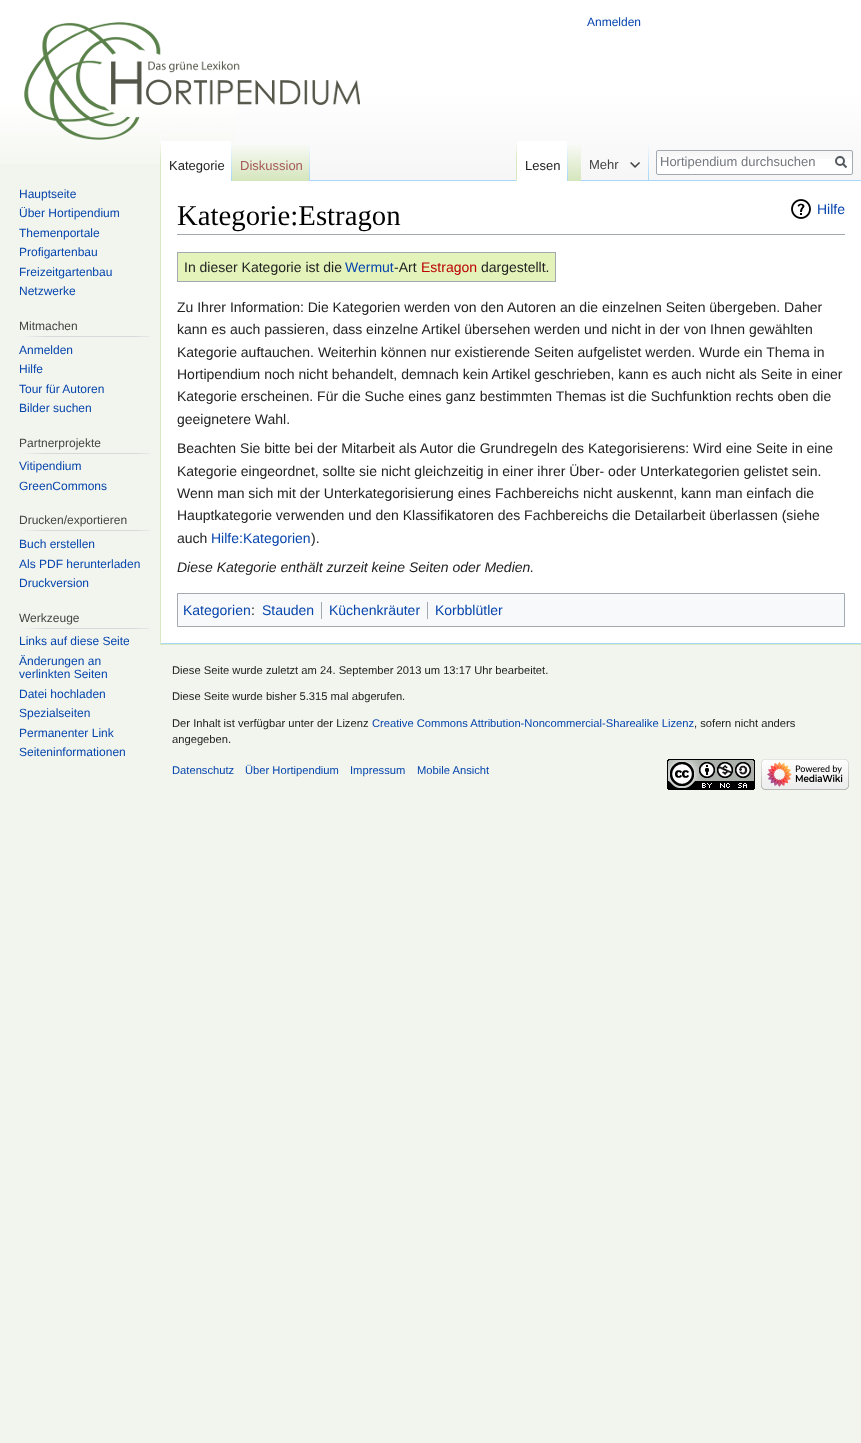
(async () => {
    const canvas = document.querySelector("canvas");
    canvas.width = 861;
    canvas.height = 1443;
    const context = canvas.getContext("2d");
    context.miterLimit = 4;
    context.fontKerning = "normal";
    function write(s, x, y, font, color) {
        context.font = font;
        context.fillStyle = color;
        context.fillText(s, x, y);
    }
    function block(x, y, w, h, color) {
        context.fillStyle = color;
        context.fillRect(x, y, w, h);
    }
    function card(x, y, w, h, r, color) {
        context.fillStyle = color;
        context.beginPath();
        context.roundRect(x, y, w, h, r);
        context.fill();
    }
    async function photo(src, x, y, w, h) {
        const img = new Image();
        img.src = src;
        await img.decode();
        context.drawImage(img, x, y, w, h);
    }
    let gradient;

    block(0, 0, 861, 1443, "rgb(242, 245, 237)");
    await photo("media/1.png", 0, 0, 235, 164);
    gradient = context.createLinearGradient(548, 0, 548, 180);
    gradient.addColorStop(0.5, "rgb(255, 255, 255)");
    gradient.addColorStop(1, "rgb(246, 246, 246)");
    context.fillStyle = gradient;
    context.fillRect(235, 0, 626, 180);
    write("Anmelden", 587, 26, "12px Liberation Sans", "rgb(6, 69, 173)");
    await photo("media/2.png", 160, 134, 1, 10);
    block(160, 643, 701, 1, "rgb(167, 215, 249)");
    block(160, 180, 1, 464, "rgb(217, 232, 192)");
    await photo("media/3.png", 160, 144, 1, 37);
    block(161, 141, 70, 40, "rgb(255, 255, 255)");
    await photo("media/4.png", 231, 141, 1, 40);
    write("Kategorie", 169, 170, "13px Liberation Sans", "rgb(34, 34, 34)");
    await photo("media/5.png", 232, 144, 77, 37);
    await photo("media/6.png", 309, 144, 1, 37);
    write("Diskussion", 240, 170, "13px Liberation Sans", "rgb(165, 88, 88)");
    block(310, 180, 551, 1, "rgb(167, 215, 249)");
    await photo("media/3.png", 516, 144, 1, 37);
    block(517, 141, 50, 40, "rgb(255, 255, 255)");
    await photo("media/4.png", 567, 141, 1, 40);
    write("Lesen", 525, 170, "13px Liberation Sans", "rgb(34, 34, 34)");
    await photo("media/7.png", 568, 144, 13, 37);
    await photo("media/8.png", 648, 144, 1, 36);
    write("Mehr", 589, 169, "13px Liberation Sans", "rgb(68, 68, 68)");
    await photo("media/9.png", 630, 162, 10, 6);
    card(656, 150, 197, 25, 2, "rgb(255, 255, 255)");
    await photo("media/10.png", 656, 151, 197, 8);
    context.beginPath();
    context.roundRect(656.5, 150.5, 196, 24, 1.5);
    context.strokeStyle = "rgb(162, 169, 177)";
    context.stroke();
    write("Hortipendium durchsuchen", 660, 166, "13px Liberation Sans", "rgb(114, 119, 125)");
    context.beginPath();
    context.moveTo(846.5, 167.5);
    context.lineTo(842.5, 163.5);
    context.strokeStyle = "rgb(84, 89, 93)";
    context.lineWidth = 2;
    context.stroke();
    context.beginPath();
    context.arc(840, 161, 4, 0, Math.PI * 2);
    context.stroke();
    await photo("media/11.png", 24, 22, 336, 118);
    write("Hauptseite", 19, 198, "12px Liberation Sans", "rgb(6, 69, 173)");
    write("Über Hortipendium", 19, 217, "12px Liberation Sans", "rgb(6, 69, 173)");
    write("Themenportale", 19, 237, "12px Liberation Sans", "rgb(6, 69, 173)");
    write("Profigartenbau", 19, 256, "12px Liberation Sans", "rgb(6, 69, 173)");
    write("Freizeitgartenbau", 19, 276, "12px Liberation Sans", "rgb(6, 69, 173)");
    write("Netzwerke", 19, 295, "12px Liberation Sans", "rgb(6, 69, 173)");
    write("Mitmachen", 19, 330, "12px Liberation Sans", "rgb(68, 68, 68)");
    await photo("media/12.png", 19, 336, 131, 1);
    write("Anmelden", 19, 354, "12px Liberation Sans", "rgb(6, 69, 173)");
    write("Hilfe", 19, 373, "12px Liberation Sans", "rgb(6, 69, 173)");
    write("Tour für Autoren", 19, 393, "12px Liberation Sans", "rgb(6, 69, 173)");
    write("Bilder suchen", 19, 412, "12px Liberation Sans", "rgb(6, 69, 173)");
    write("Partnerprojekte", 19, 447, "12px Liberation Sans", "rgb(68, 68, 68)");
    await photo("media/12.png", 19, 453, 131, 1);
    write("Vitipendium", 19, 470, "12px Liberation Sans", "rgb(6, 69, 173)");
    write("GreenCommons", 19, 490, "12px Liberation Sans", "rgb(6, 69, 173)");
    write("Drucken/exportieren", 19, 524, "12px Liberation Sans", "rgb(68, 68, 68)");
    await photo("media/12.png", 19, 530, 131, 1);
    write("Buch erstellen", 19, 548, "12px Liberation Sans", "rgb(6, 69, 173)");
    write("Als PDF herunterladen", 19, 568, "12px Liberation Sans", "rgb(6, 69, 173)");
    write("Druckversion", 19, 587, "12px Liberation Sans", "rgb(6, 69, 173)");
    write("Werkzeuge", 19, 622, "12px Liberation Sans", "rgb(68, 68, 68)");
    await photo("media/12.png", 19, 628, 131, 1);
    write("Links auf diese Seite", 19, 645, "12px Liberation Sans", "rgb(6, 69, 173)");
    write("Änderungen an", 19, 665, "12px Liberation Sans", "rgb(6, 69, 173)");
    write("verlinkten Seiten", 19, 678, "12px Liberation Sans", "rgb(6, 69, 173)");
    write("Datei hochladen", 19, 698, "12px Liberation Sans", "rgb(6, 69, 173)");
    write("Spezialseiten", 19, 717, "12px Liberation Sans", "rgb(6, 69, 173)");
    write("Permanenter Link", 19, 737, "12px Liberation Sans", "rgb(6, 69, 173)");
    write("Seiteninformationen", 19, 756, "12px Liberation Sans", "rgb(6, 69, 173)");
    block(161, 181, 700, 462, "rgb(255, 255, 255)");
    block(177, 234, 668, 1, "rgb(162, 169, 177)");
    write("Kategorie:Estragon", 177, 225, "28.75px Liberation Serif", "rgb(0, 0, 0)");
    await photo("media/13.png", 791, 199, 20, 20);
    write("Hilfe", 817, 214, "14px Liberation Sans", "rgb(6, 69, 173)");
    block(177, 252, 379, 1, "rgb(162, 169, 177)");
    block(555, 252, 1, 30, "rgb(162, 169, 177)");
    block(177, 281, 379, 1, "rgb(162, 169, 177)");
    block(177, 252, 1, 30, "rgb(162, 169, 177)");
    block(178, 253, 377, 28, "rgb(228, 243, 186)");
    write("In dieser Kategorie ist die", 184, 272, "14px Liberation Sans", "rgb(34, 34, 34)");
    write("Wermut", 345, 272, "14px Liberation Sans", "rgb(6, 69, 173)");
    write("-Art", 394, 272, "14px Liberation Sans", "rgb(34, 34, 34)");
    write("Estragon", 421, 272, "14px Liberation Sans", "rgb(186, 0, 0)");
    write("dargestellt.", 481, 272, "14px Liberation Sans", "rgb(34, 34, 34)");
    write("Zu Ihrer Information: Die Kategorien werden von den Autoren an die einzelnen Seiten übergeben. Daher", 177, 312, "14px Liberation Sans", "rgb(34, 34, 34)");
    write("kann es auch passieren, dass einzelne Artikel übersehen werden und nicht in der von Ihnen gewählten", 177, 334, "14px Liberation Sans", "rgb(34, 34, 34)");
    write("Kategorie auftauchen. Weiterhin können nur existierende Seiten aufgelistet werden. Wurde ein Thema in", 177, 357, "14px Liberation Sans", "rgb(34, 34, 34)");
    write("Hortipendium noch nicht behandelt, demnach kein Artikel geschrieben, kann es auch nicht als Seite in einer", 177, 379, "14px Liberation Sans", "rgb(34, 34, 34)");
    write("Kategorie erscheinen. Für die Suche eines ganz bestimmten Themas ist die Suchfunktion rechts oben die", 177, 401, "14px Liberation Sans", "rgb(34, 34, 34)");
    write("geeignetere Wahl.", 177, 424, "14px Liberation Sans", "rgb(34, 34, 34)");
    write("Beachten Sie bitte bei der Mitarbeit als Autor die Grundregeln des Kategorisierens: Wird eine Seite in eine", 177, 453, "14px Liberation Sans", "rgb(34, 34, 34)");
    write("Kategorie eingeordnet, sollte sie nicht gleichzeitig in einer ihrer Über- oder Unterkategorien gelistet sein.", 177, 476, "14px Liberation Sans", "rgb(34, 34, 34)");
    write("Wenn man sich mit der Unterkategorisierung eines Fachbereichs nicht auskennt, kann man einfach die", 177, 498, "14px Liberation Sans", "rgb(34, 34, 34)");
    write("Hauptkategorie verwenden und den Klassifikatoren des Fachbereichs die Detailarbeit überlassen (siehe", 177, 520, "14px Liberation Sans", "rgb(34, 34, 34)");
    write("auch", 177, 543, "14px Liberation Sans", "rgb(34, 34, 34)");
    write("Hilfe:Kategorien", 211, 543, "14px Liberation Sans", "rgb(6, 69, 173)");
    write(").", 311, 543, "14px Liberation Sans", "rgb(34, 34, 34)");
    write("Diese Kategorie enthält zurzeit keine Seiten oder Medien.", 177, 572, "italic 14px Liberation Sans", "rgb(34, 34, 34)");
    context.fillStyle = "rgb(248, 249, 250)";
    context.beginPath();
    context.rect(177.5, 593.5, 667, 33);
    context.fill();
    context.strokeStyle = "rgb(162, 169, 177)";
    context.lineWidth = 1;
    context.stroke();
    write("Kategorien", 183, 615, "14px Liberation Sans", "rgb(6, 69, 173)");
    write(":", 251, 615, "14px Liberation Sans", "rgb(34, 34, 34)");
    write("Stauden", 262, 615, "14px Liberation Sans", "rgb(6, 69, 173)");
    block(321, 602, 1, 17, "rgb(162, 169, 177)");
    write("Küchenkräuter", 329, 615, "14px Liberation Sans", "rgb(6, 69, 173)");
    block(427, 602, 1, 17, "rgb(162, 169, 177)");
    write("Korbblütler", 435, 615, "14px Liberation Sans", "rgb(6, 69, 173)");
    block(160, 644, 701, 1, "rgb(217, 232, 192)");
    write("Diese Seite wurde zuletzt am 24. September 2013 um 13:17 Uhr bearbeitet.", 172, 674, "11.2px Liberation Sans", "rgb(34, 34, 34)");
    write("Diese Seite wurde bisher 5.315 mal abgerufen.", 172, 700, "11.2px Liberation Sans", "rgb(34, 34, 34)");
    write("Der Inhalt ist verfügbar unter der Lizenz", 172, 727, "11.2px Liberation Sans", "rgb(34, 34, 34)");
    write("Creative Commons Attribution-Noncommercial-Sharealike Lizenz", 372, 727, "11.2px Liberation Sans", "rgb(6, 69, 173)");
    write(", sofern nicht anders", 694, 727, "11.2px Liberation Sans", "rgb(34, 34, 34)");
    write("angegeben.", 172, 743, "11.2px Liberation Sans", "rgb(34, 34, 34)");
    write("Datenschutz", 172, 774, "11.2px Liberation Sans", "rgb(6, 69, 173)");
    write("Über Hortipendium", 245, 774, "11.2px Liberation Sans", "rgb(6, 69, 173)");
    write("Impressum", 350, 774, "11.2px Liberation Sans", "rgb(6, 69, 173)");
    write("Mobile Ansicht", 417, 774, "11.2px Liberation Sans", "rgb(6, 69, 173)");
    await photo("media/14.png", 667, 759, 88, 31);
    await photo("media/15.png", 761, 759, 88, 31);
})();
